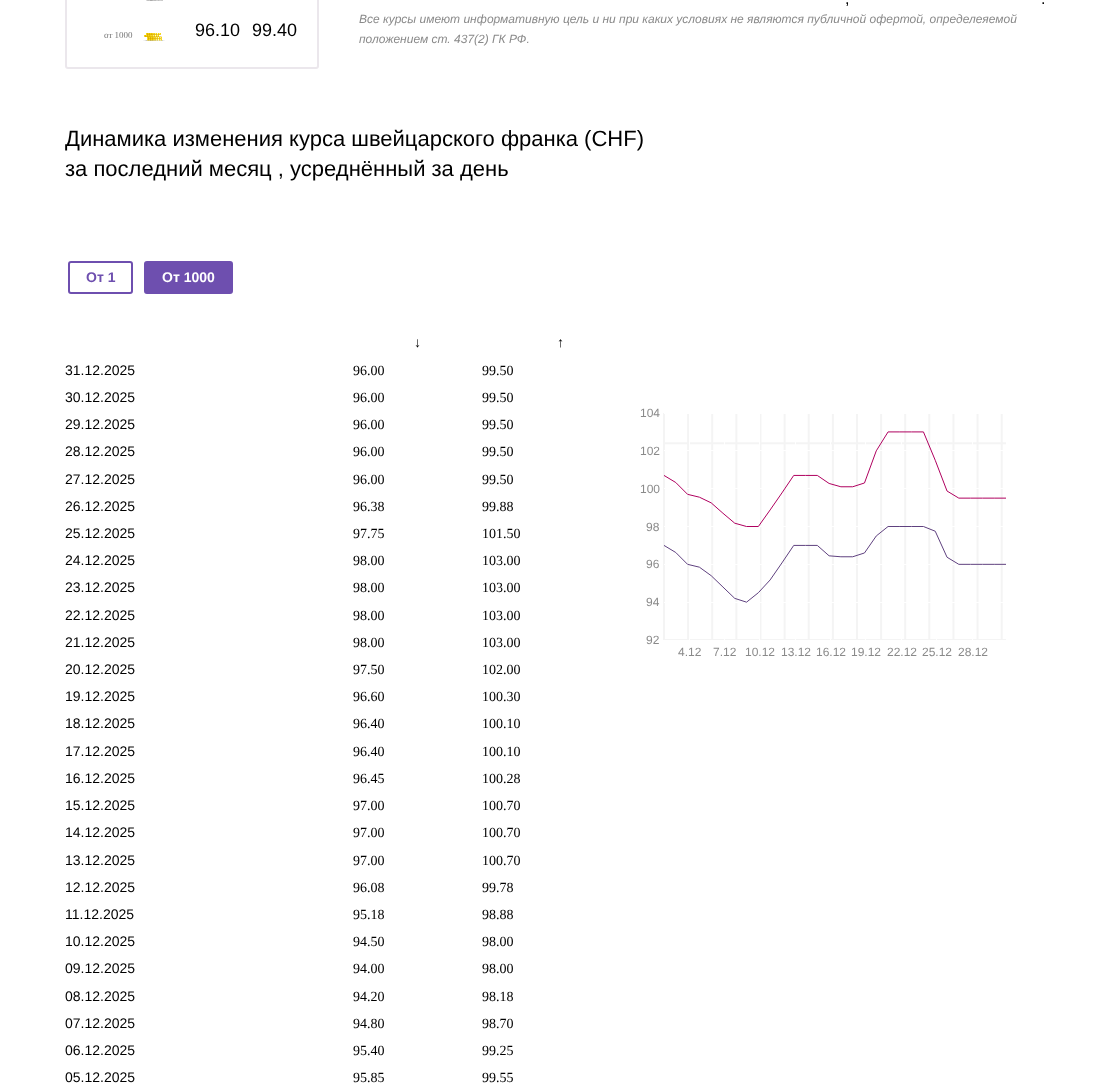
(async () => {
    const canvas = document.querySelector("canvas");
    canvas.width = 1101;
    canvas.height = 1083;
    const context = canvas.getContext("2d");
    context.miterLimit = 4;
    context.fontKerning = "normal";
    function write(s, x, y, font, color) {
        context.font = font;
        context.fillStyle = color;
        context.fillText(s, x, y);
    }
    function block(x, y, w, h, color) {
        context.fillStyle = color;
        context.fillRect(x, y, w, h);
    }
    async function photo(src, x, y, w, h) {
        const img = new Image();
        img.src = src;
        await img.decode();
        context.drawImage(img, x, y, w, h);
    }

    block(0, 0, 1101, 1083, "rgb(255, 255, 255)");
    context.beginPath();
    context.roundRect(66, -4, 252, 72, 2);
    context.strokeStyle = "rgb(235, 231, 236)";
    context.lineWidth = 2;
    context.stroke();
    await photo("media/1.png", 146, 0, 17, 1);
    write("от 1000", 104, 38, "9px Liberation Serif", "rgb(117, 117, 117)");
    await photo("media/2.png", 143, 33, 22, 8);
    write("96.10", 195, 36, "18px Liberation Sans", "rgb(0, 0, 0)");
    write("99.40", 252, 36, "18px Liberation Sans", "rgb(0, 0, 0)");
    write(",", 845, 4, "16px Liberation Sans", "rgb(0, 0, 0)");
    write(".", 1041, 4, "16px Liberation Sans", "rgb(0, 0, 0)");
    write("Все курсы имеют информативную цель и ни при каких условиях не являются публичной офертой, определеяемой", 359, 23, "italic 12px Liberation Sans", "rgb(138, 138, 138)");
    write("положением ст. 437(2) ГК РФ.", 359, 43, "italic 12px Liberation Sans", "rgb(138, 138, 138)");
    write("Динамика изменения курса швейцарского франка (CHF)", 65, 146, "22px Liberation Sans", "rgb(0, 0, 0)");
    write("за последний месяц , усреднённый за день", 65, 176, "22px Liberation Sans", "rgb(0, 0, 0)");
    context.beginPath();
    context.roundRect(69, 262, 63, 31, 2);
    context.strokeStyle = "rgb(110, 79, 175)";
    context.stroke();
    write("От 1", 86, 282, "bold 14px Liberation Sans", "rgb(110, 79, 175)");
    context.beginPath();
    context.roundRect(145, 262, 87, 31, 2);
    context.fill();
    context.stroke();
    write("От 1000", 162, 282, "bold 14px Liberation Sans", "rgb(255, 255, 255)");
    write("↓", 414, 347, "bold 14px Liberation Sans", "rgb(0, 0, 0)");
    write("↑", 557, 347, "bold 14px Liberation Sans", "rgb(0, 0, 0)");
    write("31.12.2025", 65, 375, "14px Liberation Sans", "rgb(0, 0, 0)");
    write("96.00", 353, 375, "14px Liberation Serif", "rgb(0, 0, 0)");
    write("99.50", 482, 375, "14px Liberation Serif", "rgb(0, 0, 0)");
    write("30.12.2025", 65, 402, "14px Liberation Sans", "rgb(0, 0, 0)");
    write("96.00", 353, 402, "14px Liberation Serif", "rgb(0, 0, 0)");
    write("99.50", 482, 402, "14px Liberation Serif", "rgb(0, 0, 0)");
    write("29.12.2025", 65, 429, "14px Liberation Sans", "rgb(0, 0, 0)");
    write("96.00", 353, 429, "14px Liberation Serif", "rgb(0, 0, 0)");
    write("99.50", 482, 429, "14px Liberation Serif", "rgb(0, 0, 0)");
    write("28.12.2025", 65, 456, "14px Liberation Sans", "rgb(0, 0, 0)");
    write("96.00", 353, 456, "14px Liberation Serif", "rgb(0, 0, 0)");
    write("99.50", 482, 456, "14px Liberation Serif", "rgb(0, 0, 0)");
    write("27.12.2025", 65, 484, "14px Liberation Sans", "rgb(0, 0, 0)");
    write("96.00", 353, 484, "14px Liberation Serif", "rgb(0, 0, 0)");
    write("99.50", 482, 484, "14px Liberation Serif", "rgb(0, 0, 0)");
    write("26.12.2025", 65, 511, "14px Liberation Sans", "rgb(0, 0, 0)");
    write("96.38", 353, 511, "14px Liberation Serif", "rgb(0, 0, 0)");
    write("99.88", 482, 511, "14px Liberation Serif", "rgb(0, 0, 0)");
    write("25.12.2025", 65, 538, "14px Liberation Sans", "rgb(0, 0, 0)");
    write("97.75", 353, 538, "14px Liberation Serif", "rgb(0, 0, 0)");
    write("101.50", 482, 538, "14px Liberation Serif", "rgb(0, 0, 0)");
    write("24.12.2025", 65, 565, "14px Liberation Sans", "rgb(0, 0, 0)");
    write("98.00", 353, 565, "14px Liberation Serif", "rgb(0, 0, 0)");
    write("103.00", 482, 565, "14px Liberation Serif", "rgb(0, 0, 0)");
    write("23.12.2025", 65, 592, "14px Liberation Sans", "rgb(0, 0, 0)");
    write("98.00", 353, 592, "14px Liberation Serif", "rgb(0, 0, 0)");
    write("103.00", 482, 592, "14px Liberation Serif", "rgb(0, 0, 0)");
    write("22.12.2025", 65, 620, "14px Liberation Sans", "rgb(0, 0, 0)");
    write("98.00", 353, 620, "14px Liberation Serif", "rgb(0, 0, 0)");
    write("103.00", 482, 620, "14px Liberation Serif", "rgb(0, 0, 0)");
    write("21.12.2025", 65, 647, "14px Liberation Sans", "rgb(0, 0, 0)");
    write("98.00", 353, 647, "14px Liberation Serif", "rgb(0, 0, 0)");
    write("103.00", 482, 647, "14px Liberation Serif", "rgb(0, 0, 0)");
    write("20.12.2025", 65, 674, "14px Liberation Sans", "rgb(0, 0, 0)");
    write("97.50", 353, 674, "14px Liberation Serif", "rgb(0, 0, 0)");
    write("102.00", 482, 674, "14px Liberation Serif", "rgb(0, 0, 0)");
    write("19.12.2025", 65, 701, "14px Liberation Sans", "rgb(0, 0, 0)");
    write("96.60", 353, 701, "14px Liberation Serif", "rgb(0, 0, 0)");
    write("100.30", 482, 701, "14px Liberation Serif", "rgb(0, 0, 0)");
    write("18.12.2025", 65, 728, "14px Liberation Sans", "rgb(0, 0, 0)");
    write("96.40", 353, 728, "14px Liberation Serif", "rgb(0, 0, 0)");
    write("100.10", 482, 728, "14px Liberation Serif", "rgb(0, 0, 0)");
    write("17.12.2025", 65, 756, "14px Liberation Sans", "rgb(0, 0, 0)");
    write("96.40", 353, 756, "14px Liberation Serif", "rgb(0, 0, 0)");
    write("100.10", 482, 756, "14px Liberation Serif", "rgb(0, 0, 0)");
    write("16.12.2025", 65, 783, "14px Liberation Sans", "rgb(0, 0, 0)");
    write("96.45", 353, 783, "14px Liberation Serif", "rgb(0, 0, 0)");
    write("100.28", 482, 783, "14px Liberation Serif", "rgb(0, 0, 0)");
    write("15.12.2025", 65, 810, "14px Liberation Sans", "rgb(0, 0, 0)");
    write("97.00", 353, 810, "14px Liberation Serif", "rgb(0, 0, 0)");
    write("100.70", 482, 810, "14px Liberation Serif", "rgb(0, 0, 0)");
    write("14.12.2025", 65, 837, "14px Liberation Sans", "rgb(0, 0, 0)");
    write("97.00", 353, 837, "14px Liberation Serif", "rgb(0, 0, 0)");
    write("100.70", 482, 837, "14px Liberation Serif", "rgb(0, 0, 0)");
    write("13.12.2025", 65, 865, "14px Liberation Sans", "rgb(0, 0, 0)");
    write("97.00", 353, 865, "14px Liberation Serif", "rgb(0, 0, 0)");
    write("100.70", 482, 865, "14px Liberation Serif", "rgb(0, 0, 0)");
    write("12.12.2025", 65, 892, "14px Liberation Sans", "rgb(0, 0, 0)");
    write("96.08", 353, 892, "14px Liberation Serif", "rgb(0, 0, 0)");
    write("99.78", 482, 892, "14px Liberation Serif", "rgb(0, 0, 0)");
    write("11.12.2025", 65, 919, "14px Liberation Sans", "rgb(0, 0, 0)");
    write("95.18", 353, 919, "14px Liberation Serif", "rgb(0, 0, 0)");
    write("98.88", 482, 919, "14px Liberation Serif", "rgb(0, 0, 0)");
    write("10.12.2025", 65, 946, "14px Liberation Sans", "rgb(0, 0, 0)");
    write("94.50", 353, 946, "14px Liberation Serif", "rgb(0, 0, 0)");
    write("98.00", 482, 946, "14px Liberation Serif", "rgb(0, 0, 0)");
    write("09.12.2025", 65, 973, "14px Liberation Sans", "rgb(0, 0, 0)");
    write("94.00", 353, 973, "14px Liberation Serif", "rgb(0, 0, 0)");
    write("98.00", 482, 973, "14px Liberation Serif", "rgb(0, 0, 0)");
    write("08.12.2025", 65, 1001, "14px Liberation Sans", "rgb(0, 0, 0)");
    write("94.20", 353, 1001, "14px Liberation Serif", "rgb(0, 0, 0)");
    write("98.18", 482, 1001, "14px Liberation Serif", "rgb(0, 0, 0)");
    write("07.12.2025", 65, 1028, "14px Liberation Sans", "rgb(0, 0, 0)");
    write("94.80", 353, 1028, "14px Liberation Serif", "rgb(0, 0, 0)");
    write("98.70", 482, 1028, "14px Liberation Serif", "rgb(0, 0, 0)");
    write("06.12.2025", 65, 1055, "14px Liberation Sans", "rgb(0, 0, 0)");
    write("95.40", 353, 1055, "14px Liberation Serif", "rgb(0, 0, 0)");
    write("99.25", 482, 1055, "14px Liberation Serif", "rgb(0, 0, 0)");
    write("05.12.2025", 65, 1082, "14px Liberation Sans", "rgb(0, 0, 0)");
    write("95.85", 353, 1082, "14px Liberation Serif", "rgb(0, 0, 0)");
    write("99.55", 482, 1082, "14px Liberation Serif", "rgb(0, 0, 0)");
    write("104", 640, 417, "12px Liberation Sans", "rgb(138, 138, 138)");
    write("102", 640, 455, "12px Liberation Sans", "rgb(138, 138, 138)");
    write("100", 640, 493, "12px Liberation Sans", "rgb(138, 138, 138)");
    write("98", 646, 531, "12px Liberation Sans", "rgb(138, 138, 138)");
    write("96", 646, 568, "12px Liberation Sans", "rgb(138, 138, 138)");
    write("94", 646, 606, "12px Liberation Sans", "rgb(138, 138, 138)");
    write("92", 646, 644, "12px Liberation Sans", "rgb(138, 138, 138)");
    write("4.12", 678, 656, "12px Liberation Sans", "rgb(138, 138, 138)");
    write("7.12", 713, 656, "12px Liberation Sans", "rgb(138, 138, 138)");
    write("10.12", 745, 656, "12px Liberation Sans", "rgb(138, 138, 138)");
    write("13.12", 781, 656, "12px Liberation Sans", "rgb(138, 138, 138)");
    write("16.12", 816, 656, "12px Liberation Sans", "rgb(138, 138, 138)");
    write("19.12", 851, 656, "12px Liberation Sans", "rgb(138, 138, 138)");
    write("22.12", 887, 656, "12px Liberation Sans", "rgb(138, 138, 138)");
    write("25.12", 922, 656, "12px Liberation Sans", "rgb(138, 138, 138)");
    write("28.12", 958, 656, "12px Liberation Sans", "rgb(138, 138, 138)");
    await photo("media/3.png", 663, 413, 343, 227);
})();
